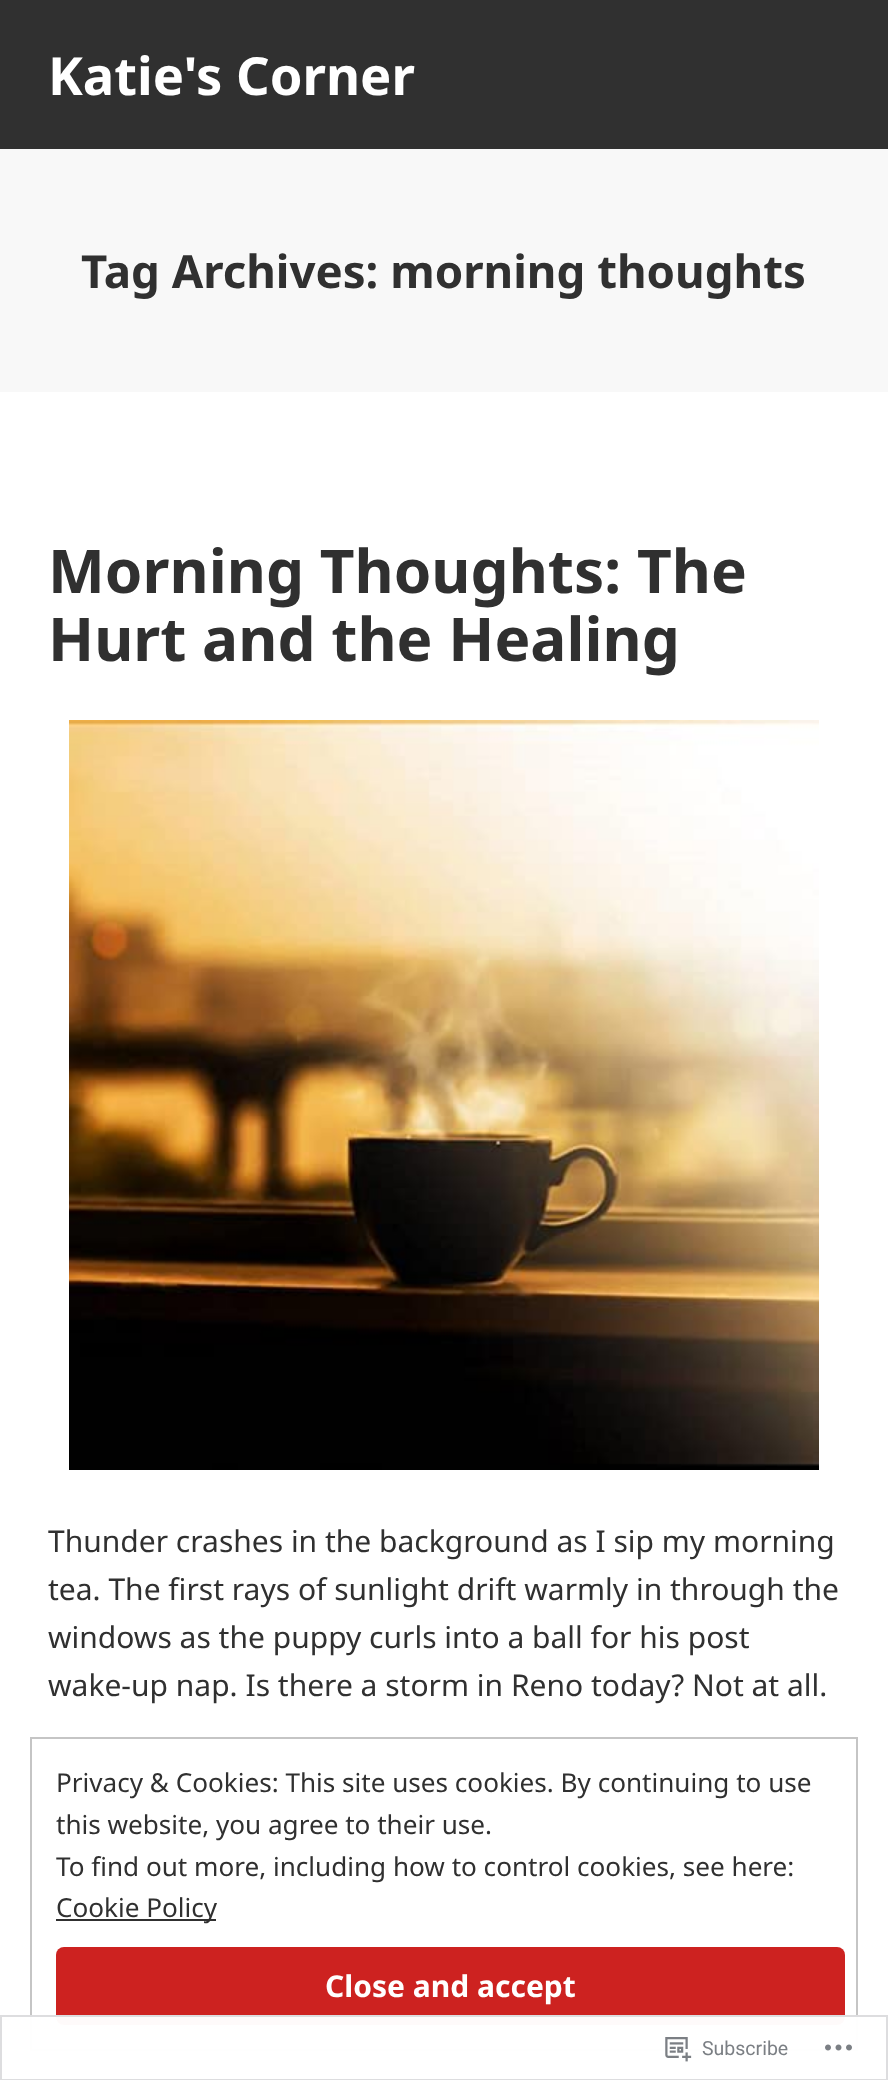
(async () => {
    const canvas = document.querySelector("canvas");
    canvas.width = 888;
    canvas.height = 2080;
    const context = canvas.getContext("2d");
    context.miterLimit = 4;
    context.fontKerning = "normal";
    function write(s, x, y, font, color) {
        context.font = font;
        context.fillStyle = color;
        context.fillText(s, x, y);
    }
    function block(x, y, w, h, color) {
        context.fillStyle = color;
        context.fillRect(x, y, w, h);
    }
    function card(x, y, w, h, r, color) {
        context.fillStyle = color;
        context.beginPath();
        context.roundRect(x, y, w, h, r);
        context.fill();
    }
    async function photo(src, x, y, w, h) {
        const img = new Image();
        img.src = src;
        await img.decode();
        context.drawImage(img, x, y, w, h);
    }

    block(0, 0, 888, 2080, "rgb(255, 255, 255)");
    block(0, 0, 888, 149, "rgb(48, 48, 48)");
    write("Katie's Corner", 48, 95, "bold 52.5px Noto Sans", "rgb(255, 255, 255)");
    block(0, 149, 888, 243, "rgb(248, 248, 248)");
    write("Tag Archives: morning thoughts", 81, 288, "bold 45.6px Noto Sans", "rgb(48, 48, 48)");
    write("Morning Thoughts: The", 48, 593, "bold 60.3px Noto Sans", "rgb(48, 48, 48)");
    write("Hurt and the Healing", 48, 661, "bold 60.3px Noto Sans", "rgb(48, 48, 48)");
    await photo("media/1.png", 69, 720, 750, 750);
    write("Thunder crashes in the background as I sip my morning", 48, 1552, "30px Noto Sans", "rgb(48, 48, 48)");
    write("tea. The first rays of sunlight drift warmly in through the", 48, 1600, "30px Noto Sans", "rgb(48, 48, 48)");
    write("windows as the puppy curls into a ball for his post", 48, 1648, "30px Noto Sans", "rgb(48, 48, 48)");
    write("wake-up nap. Is there a storm in Reno today? Not at all.", 48, 1696, "30px Noto Sans", "rgb(48, 48, 48)");
    context.strokeStyle = "rgb(197, 197, 197)";
    context.lineWidth = 2;
    context.strokeRect(31, 1738, 826, 312);
    write("Privacy & Cookies: This site uses cookies. By continuing to use", 56, 1792, "26.1px Noto Sans", "rgb(48, 48, 48)");
    write("this website, you agree to their use.", 56, 1834, "26.1px Noto Sans", "rgb(48, 48, 48)");
    write("To find out more, including how to control cookies, see here:", 56, 1876, "26.1px Noto Sans", "rgb(48, 48, 48)");
    block(56, 1919, 160, 2, "rgb(48, 48, 48)");
    write("Cookie Policy", 56, 1917, "26.1px Noto Sans", "rgb(48, 48, 48)");
    card(56, 1947, 789, 78, 8, "rgb(205, 34, 32)");
    write("Close and accept", 325, 1997, "bold 30px Noto Sans", "rgb(255, 255, 255)");
    block(30, 2015, 828, 36, "rgba(255, 255, 255, 0.98)");
    context.strokeStyle = "rgba(220, 220, 222, 0.98)";
    context.strokeRect(1, 2016, 886, 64);
    await photo("media/2.png", 665, 2037, 27, 25);
    write("Subscribe", 702, 2055, "19.5px Roboto", "rgb(123, 127, 132)");
    await photo("media/3.png", 825, 2044, 27, 7);
})();
